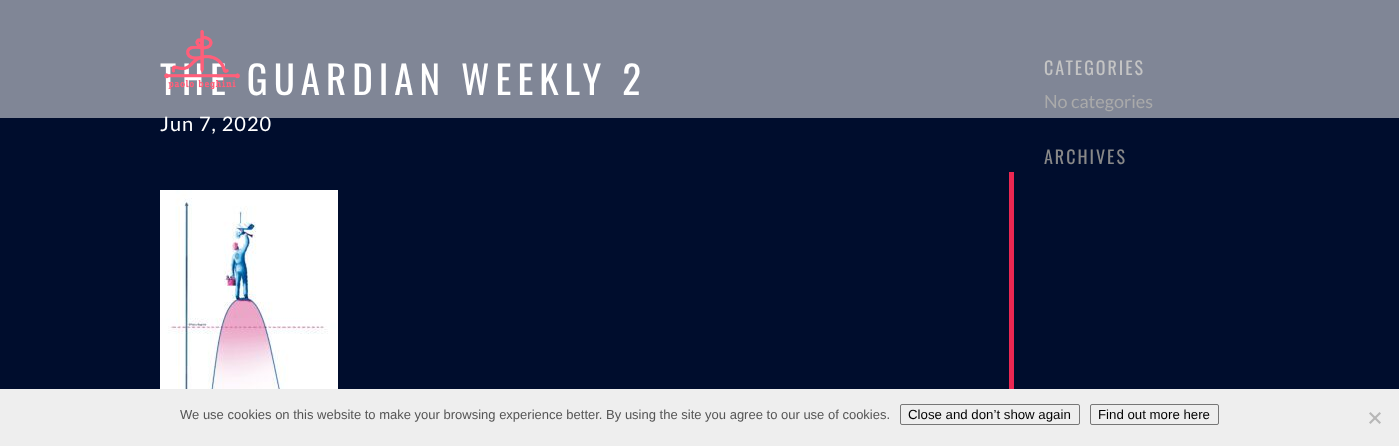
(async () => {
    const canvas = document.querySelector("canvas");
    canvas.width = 1399;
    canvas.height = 446;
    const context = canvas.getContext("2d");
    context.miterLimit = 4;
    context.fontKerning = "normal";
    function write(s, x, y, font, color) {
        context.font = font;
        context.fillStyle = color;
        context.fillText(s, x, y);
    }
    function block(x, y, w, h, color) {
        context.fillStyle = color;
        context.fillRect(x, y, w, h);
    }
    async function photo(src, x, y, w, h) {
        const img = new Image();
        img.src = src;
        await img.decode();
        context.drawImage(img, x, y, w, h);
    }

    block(0, 0, 1399, 446, "rgb(0, 13, 45)");
    context.letterSpacing = "6px";
    write("THE GUARDIAN WEEKLY 2", 160, 95, "39px Oswald", "rgb(255, 255, 255)");
    context.letterSpacing = "1px";
    write("Jun 7, 2020", 160, 131, "20px Lato", "rgb(255, 255, 255)");
    context.letterSpacing = "2px";
    write("CATEGORIES", 1044, 75, "18px Oswald", "rgb(136, 136, 136)");
    context.letterSpacing = "0px";
    write("No categories", 1044, 108, "18px Lato", "rgb(85, 85, 85)");
    block(0, 0, 1399, 118, "rgba(255, 255, 255, 0.5)");
    await photo("media/1.png", 164, 30, 76, 59);
    await photo("media/2.png", 160, 190, 178, 199);
    context.letterSpacing = "2px";
    write("ARCHIVES", 1044, 164, "18px Oswald", "rgb(136, 136, 136)");
    block(1009, 172, 5, 217, "rgb(235, 39, 82)");
    block(0, 389, 1399, 57, "rgb(238, 238, 238)");
    context.letterSpacing = "0px";
    write("We use cookies on this website to make your browsing experience better. By using the site you agree to our use of cookies.", 180, 419, "13px Liberation Sans", "rgb(85, 85, 85)");
    context.beginPath();
    context.roundRect(900.5, 404.5, 179, 20, 1.5);
    context.strokeStyle = "rgb(118, 118, 118)";
    context.stroke();
    write("Close and don’t show again", 908, 419, "13.25px Liberation Sans", "rgb(0, 0, 0)");
    context.beginPath();
    context.roundRect(1090.5, 404.5, 128, 20, 1.5);
    context.stroke();
    write("Find out more here", 1098, 419, "13.25px Liberation Sans", "rgb(0, 0, 0)");
    context.fillStyle = "rgb(183, 183, 183)";
    context.beginPath();
    context.moveTo(1379.5, 412);
    context.lineTo(1381, 413.5);
    context.lineTo(1370.5, 424);
    context.lineTo(1369, 422.5);
    context.closePath();
    context.fill();
    context.beginPath();
    context.moveTo(1369, 413.5);
    context.lineTo(1370.5, 412);
    context.lineTo(1381, 422.5);
    context.lineTo(1379.5, 424);
    context.closePath();
    context.fill();
})();
